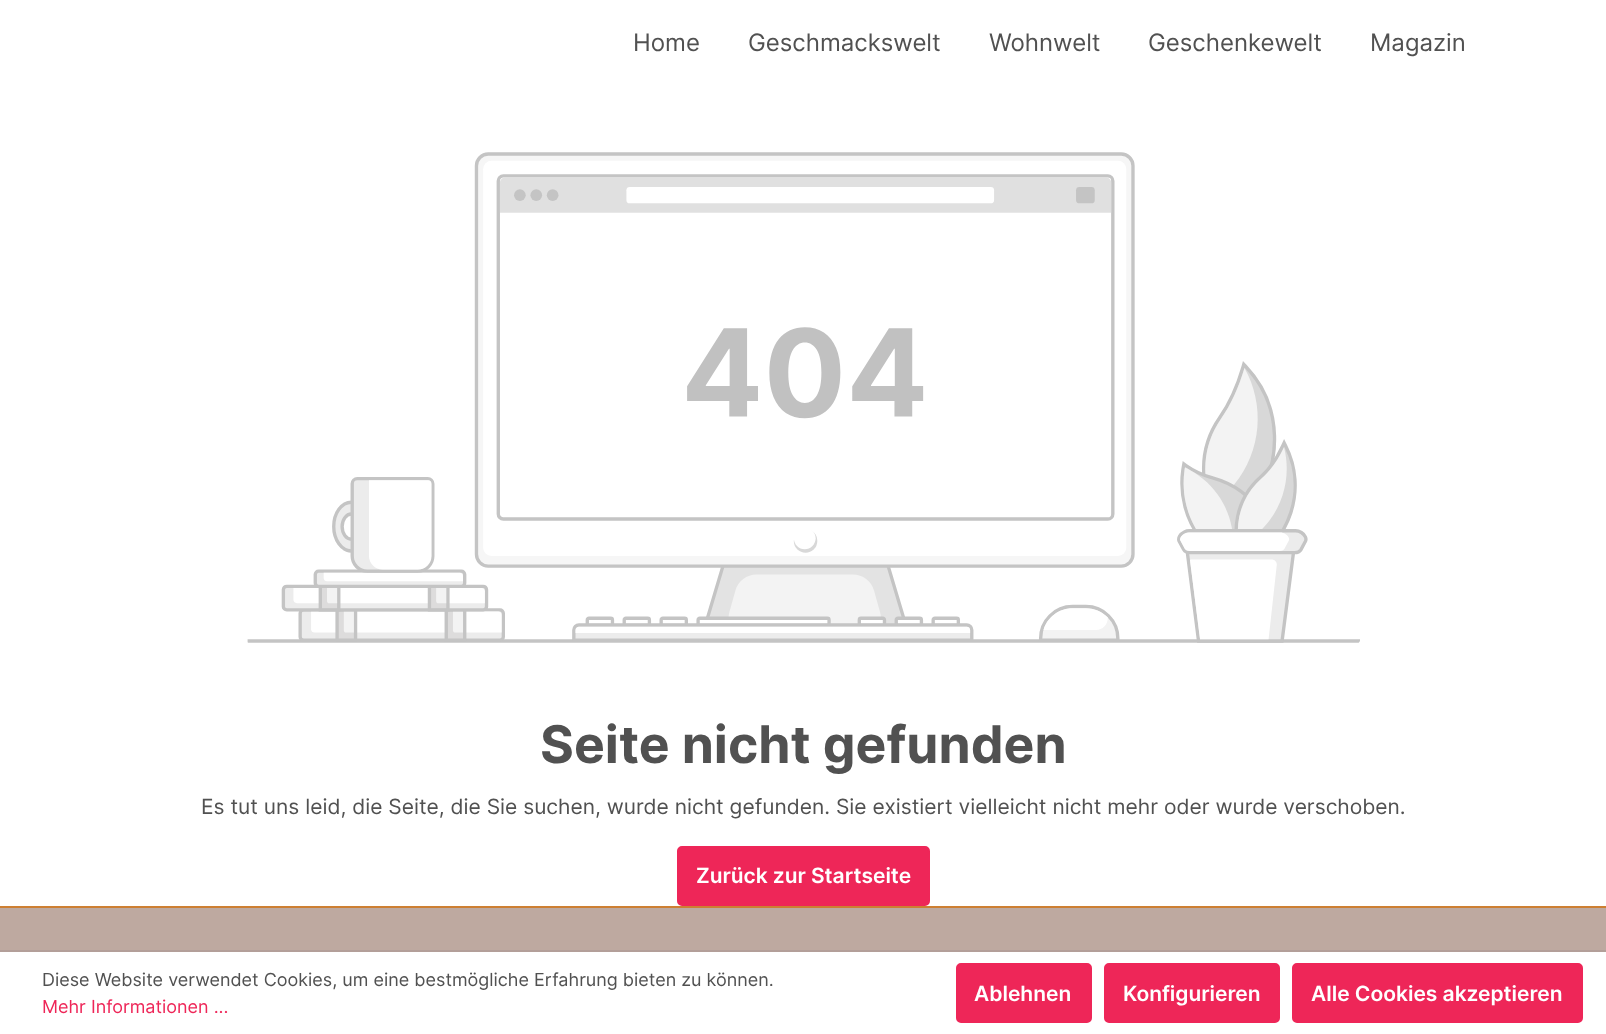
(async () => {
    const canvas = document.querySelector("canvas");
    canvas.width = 1606;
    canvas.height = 1034;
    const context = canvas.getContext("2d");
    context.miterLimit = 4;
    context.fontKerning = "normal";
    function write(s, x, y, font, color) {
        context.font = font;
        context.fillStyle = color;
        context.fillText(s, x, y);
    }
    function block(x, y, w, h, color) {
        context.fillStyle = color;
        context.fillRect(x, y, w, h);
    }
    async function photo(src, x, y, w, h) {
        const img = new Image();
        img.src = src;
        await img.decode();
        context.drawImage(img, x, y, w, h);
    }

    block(0, 0, 1606, 1034, "rgb(255, 255, 255)");
    write("Home", 633, 51, "24px Inter", "rgb(81, 81, 81)");
    write("Geschmackswelt", 748, 51, "24px Inter", "rgb(81, 81, 81)");
    write("Wohnwelt", 989, 51, "24px Inter", "rgb(81, 81, 81)");
    write("Geschenkewelt", 1148, 51, "24px Inter", "rgb(81, 81, 81)");
    write("Magazin", 1370, 51, "24px Inter", "rgb(81, 81, 81)");
    await photo("media/1.png", 247, 152, 1113, 491);
    write("Seite nicht gefunden", 540, 763, "bold 51.75px Inter", "rgb(81, 81, 81)");
    write("Es tut uns leid, die Seite, die Sie suchen, wurde nicht gefunden. Sie existiert vielleicht nicht mehr oder wurde verschoben.", 201, 814, "21px Inter", "rgb(81, 81, 81)");
    context.fillStyle = "rgb(238, 38, 88)";
    context.beginPath();
    context.roundRect(678, 847, 251, 58, 4);
    context.fill();
    context.strokeStyle = "rgb(238, 38, 88)";
    context.lineWidth = 2;
    context.stroke();
    write("Zurück zur Startseite", 696, 883, "600 21px Inter", "rgb(255, 255, 255)");
    block(0, 908, 1606, 42, "rgb(190, 169, 160)");
    block(0, 906, 1606, 2, "rgb(205, 127, 50)");
    block(0, 950, 1606, 2, "rgb(179, 159, 153)");
    write("Diese Website verwendet Cookies, um eine bestmögliche Erfahrung bieten zu können.", 42, 986, "18px Inter", "rgb(81, 81, 81)");
    write("Mehr Informationen ...", 42, 1013, "18px Inter", "rgb(238, 38, 88)");
    context.beginPath();
    context.roundRect(957, 964, 134, 58, 4);
    context.fill();
    context.stroke();
    write("Ablehnen", 974, 1001, "600 21px Inter", "rgb(255, 255, 255)");
    context.fillStyle = "rgb(238, 38, 88)";
    context.beginPath();
    context.roundRect(1105, 964, 174, 58, 4);
    context.fill();
    context.stroke();
    write("Konfigurieren", 1123, 1001, "600 21px Inter", "rgb(255, 255, 255)");
    context.fillStyle = "rgb(238, 38, 88)";
    context.beginPath();
    context.roundRect(1293, 964, 289, 58, 4);
    context.fill();
    context.stroke();
    write("Alle Cookies akzeptieren", 1311, 1001, "600 21px Inter", "rgb(255, 255, 255)");
})();
